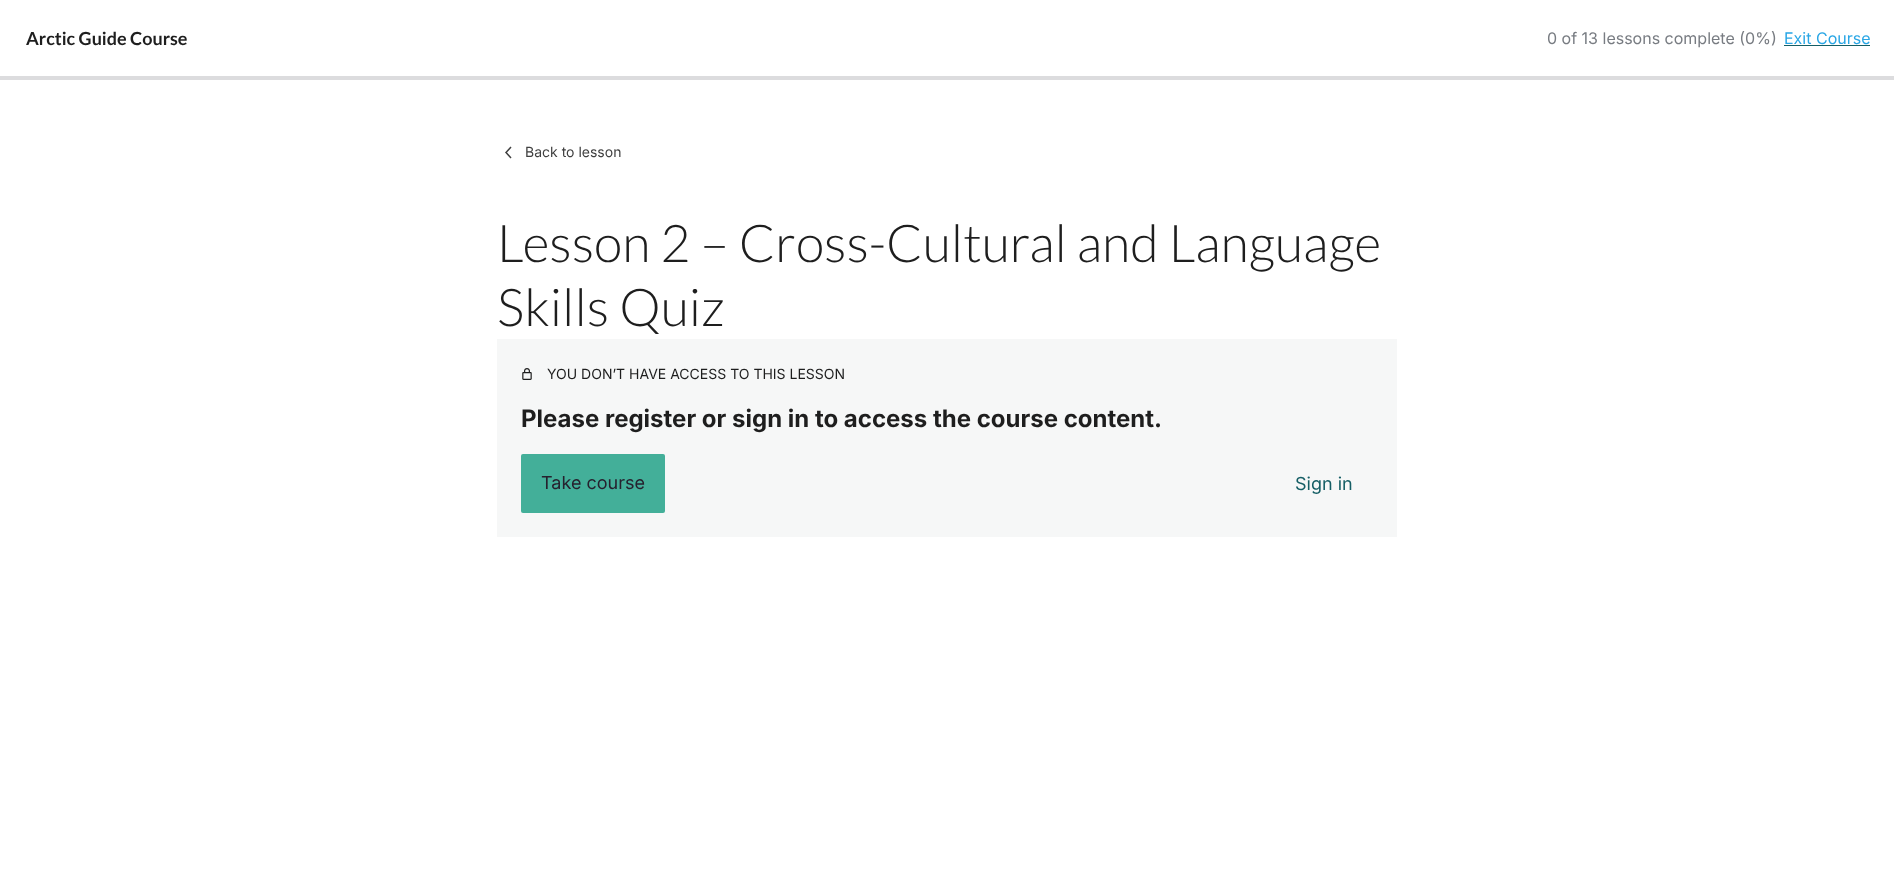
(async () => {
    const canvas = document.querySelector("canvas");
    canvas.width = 1894;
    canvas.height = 895;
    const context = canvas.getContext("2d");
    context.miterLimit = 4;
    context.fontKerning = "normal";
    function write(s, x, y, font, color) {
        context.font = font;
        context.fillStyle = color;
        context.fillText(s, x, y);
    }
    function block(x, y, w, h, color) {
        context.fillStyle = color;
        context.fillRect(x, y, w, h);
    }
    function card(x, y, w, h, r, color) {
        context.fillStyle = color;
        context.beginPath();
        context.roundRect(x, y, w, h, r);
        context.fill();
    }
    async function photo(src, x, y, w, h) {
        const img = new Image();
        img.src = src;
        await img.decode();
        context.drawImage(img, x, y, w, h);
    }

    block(0, 0, 1894, 895, "rgb(255, 255, 255)");
    write("Arctic Guide Course", 26, 45, "bold 18px Lato", "rgb(30, 30, 30)");
    write("0 of 13 lessons complete (0%)", 1547, 44, "16px Inter", "rgb(120, 124, 130)");
    write("Exit Course", 1784, 44, "16px Inter", "rgb(41, 166, 229)");
    block(1784, 45, 86, 1, "rgb(21, 94, 101)");
    block(0, 76, 1894, 4, "rgb(220, 220, 222)");
    await photo("media/1.png", 505, 146, 7, 13);
    write("Back to lesson", 525, 157, "14px Inter", "rgb(64, 64, 64)");
    write("Lesson 2 – Cross-Cultural and Language", 497, 262, "300 52px Lato", "rgb(30, 30, 30)");
    write("Skills Quiz", 497, 326, "300 52px Lato", "rgb(30, 30, 30)");
    block(497, 339, 900, 198, "rgb(246, 247, 247)");
    await photo("media/2.png", 522, 368, 10, 12);
    write("YOU DON’T HAVE ACCESS TO THIS LESSON", 547, 379, "14px Inter", "rgb(30, 30, 30)");
    write("Please register or sign in to access the course content.", 521, 427, "bold 24px Inter", "rgb(30, 30, 30)");
    card(521, 454, 144, 59, 2, "rgb(67, 175, 153)");
    write("Take course", 541, 489, "18px Inter", "rgb(38, 33, 46)");
    write("Sign in", 1295, 490, "18px Inter", "rgb(21, 94, 101)");
})();
